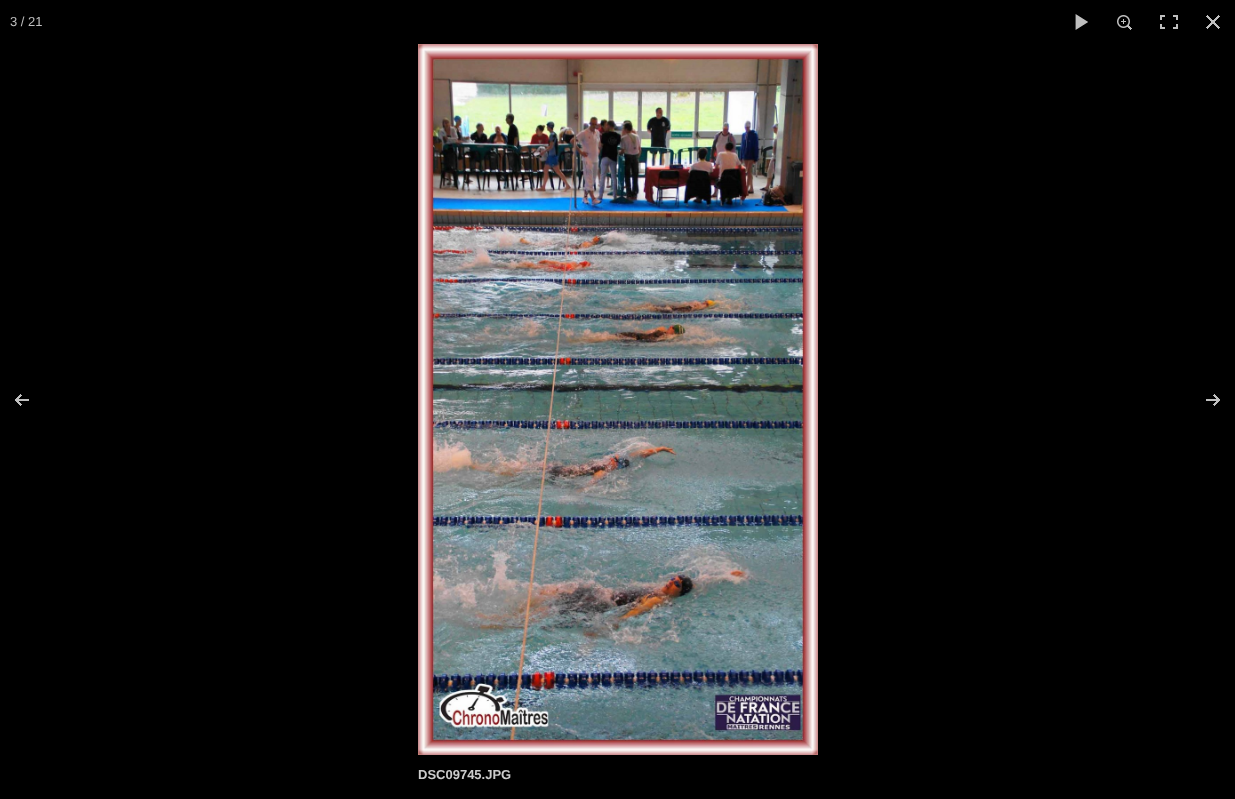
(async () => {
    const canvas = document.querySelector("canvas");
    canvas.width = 1235;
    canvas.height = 799;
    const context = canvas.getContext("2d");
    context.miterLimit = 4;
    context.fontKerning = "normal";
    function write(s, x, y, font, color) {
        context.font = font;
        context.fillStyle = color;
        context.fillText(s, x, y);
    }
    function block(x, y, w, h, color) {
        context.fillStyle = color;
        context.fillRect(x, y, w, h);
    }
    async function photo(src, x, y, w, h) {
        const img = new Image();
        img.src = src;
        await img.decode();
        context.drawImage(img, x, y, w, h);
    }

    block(0, 0, 1235, 799, "rgb(0, 0, 0)");
    write("3 / 21", 10, 26, "13px Liberation Sans", "rgb(191, 191, 191)");
    await photo("media/1.png", 1075, 14, 13, 16);
    await photo("media/2.png", 1117, 15, 15, 15);
    await photo("media/3.png", 1160, 15, 18, 14);
    await photo("media/4.png", 1206, 15, 14, 14);
    await photo("media/5.png", 15, 394, 14, 12);
    await photo("media/6.png", 1206, 394, 14, 12);
    write("DSC09745.JPG", 418, 779, "bold 13px Liberation Sans", "rgb(204, 204, 204)");
    await photo("media/7.png", 418, 44, 400, 711);
})();
